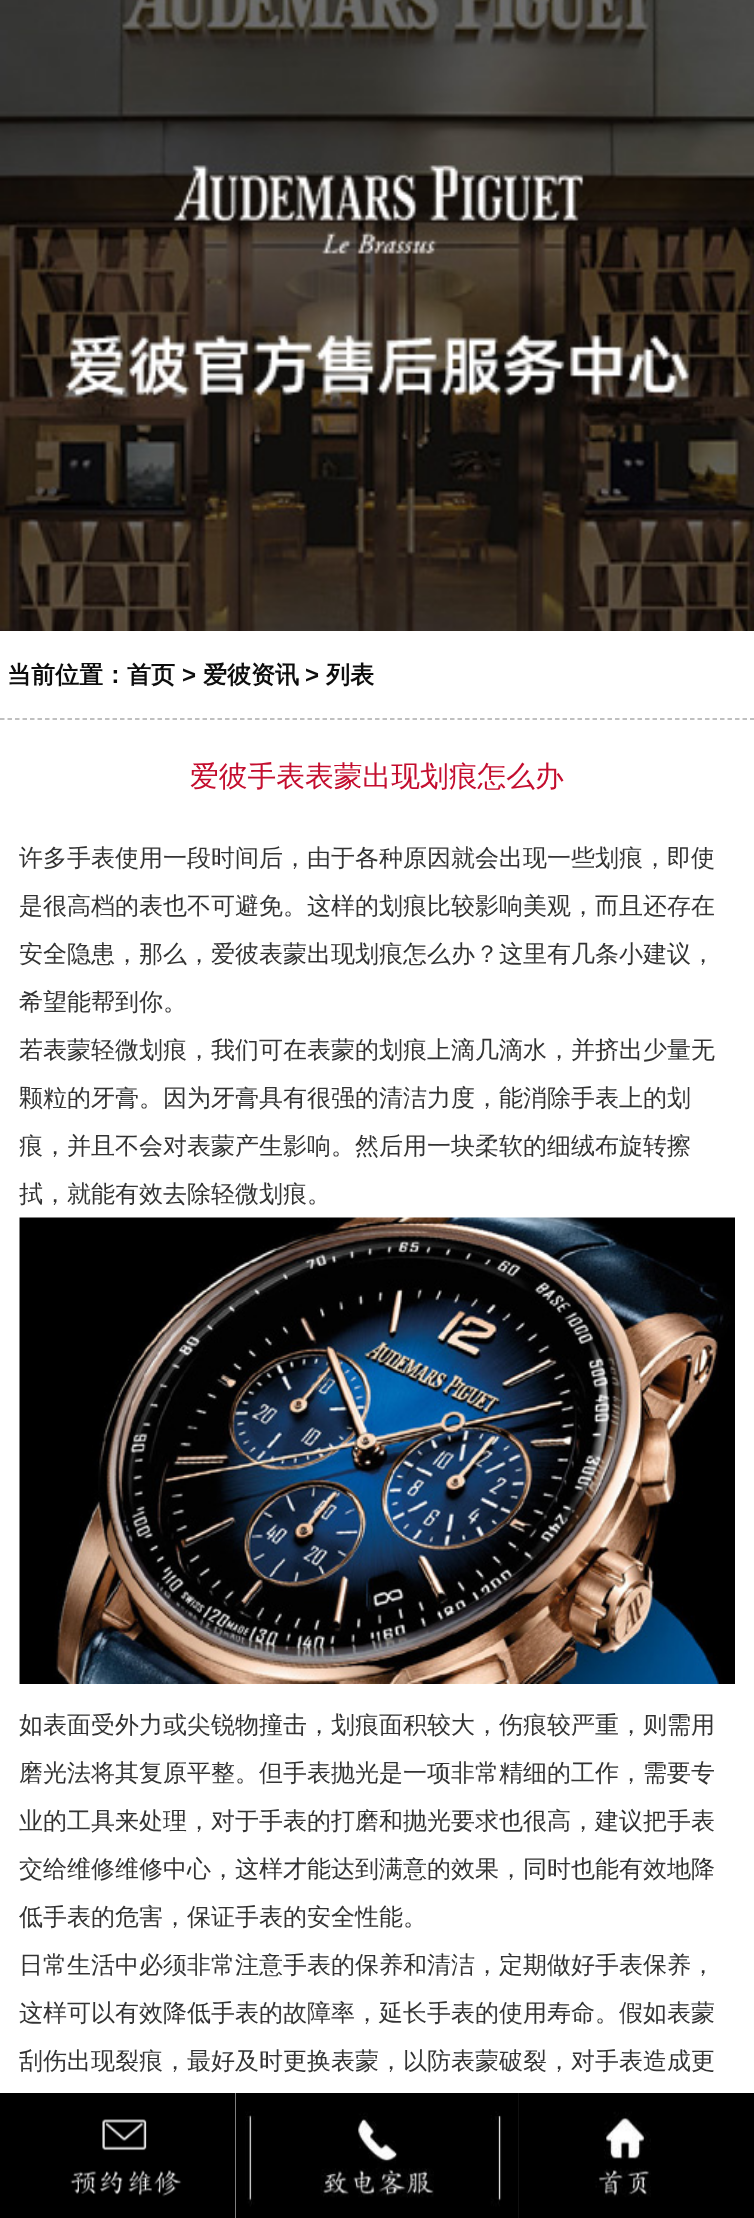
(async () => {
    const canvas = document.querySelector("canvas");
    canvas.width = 754;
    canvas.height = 2218;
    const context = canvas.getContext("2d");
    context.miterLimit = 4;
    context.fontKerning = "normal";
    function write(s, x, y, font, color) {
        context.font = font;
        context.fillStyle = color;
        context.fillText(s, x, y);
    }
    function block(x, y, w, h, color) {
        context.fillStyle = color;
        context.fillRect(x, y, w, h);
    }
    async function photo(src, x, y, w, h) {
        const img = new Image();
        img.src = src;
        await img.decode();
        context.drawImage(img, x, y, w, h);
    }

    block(0, 0, 754, 2218, "rgb(255, 255, 255)");
    await photo("media/1.png", 0, 0, 754, 631);
    context.beginPath();
    context.moveTo(0, 719);
    context.lineTo(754.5, 719);
    context.strokeStyle = "rgb(172, 172, 172)";
    context.lineWidth = 1.5;
    context.setLineDash([4.5, 3]);
    context.stroke();
    write("当前位置：首页", 7, 683, "bold 24px WenQuanYi Zen Hei", "rgb(13, 13, 13)");
    write(">", 182, 683, "bold 24px Liberation Sans", "rgb(13, 13, 13)");
    write("爱彼资讯", 203, 683, "bold 24px WenQuanYi Zen Hei", "rgb(13, 13, 13)");
    write(">", 305, 683, "bold 24px Liberation Sans", "rgb(13, 13, 13)");
    write("列表", 326, 683, "bold 24px WenQuanYi Zen Hei", "rgb(13, 13, 13)");
    write("爱彼手表表蒙出现划痕怎么办", 190, 786, "500 28.75px WenQuanYi Zen Hei", "rgb(196, 13, 46)");
    write("许多手表使用一段时间后，由于各种原因就会出现一些划痕，即使", 19, 866, "500 24px WenQuanYi Zen Hei", "rgb(51, 51, 51)");
    write("是很高档的表也不可避免。这样的划痕比较影响美观，而且还存在", 19, 914, "500 24px WenQuanYi Zen Hei", "rgb(51, 51, 51)");
    write("安全隐患，那么，爱彼表蒙出现划痕怎么办？这里有几条小建议，", 19, 962, "500 24px WenQuanYi Zen Hei", "rgb(51, 51, 51)");
    write("希望能帮到你。", 19, 1010, "500 24px WenQuanYi Zen Hei", "rgb(51, 51, 51)");
    write("若表蒙轻微划痕，我们可在表蒙的划痕上滴几滴水，并挤出少量无", 19, 1058, "500 24px WenQuanYi Zen Hei", "rgb(51, 51, 51)");
    write("颗粒的牙膏。因为牙膏具有很强的清洁力度，能消除手表上的划", 19, 1106, "500 24px WenQuanYi Zen Hei", "rgb(51, 51, 51)");
    write("痕，并且不会对表蒙产生影响。然后用一块柔软的细绒布旋转擦", 19, 1154, "500 24px WenQuanYi Zen Hei", "rgb(51, 51, 51)");
    write("拭，就能有效去除轻微划痕。", 19, 1202, "500 24px WenQuanYi Zen Hei", "rgb(51, 51, 51)");
    await photo("media/2.png", 19, 1217, 716, 467);
    write("如表面受外力或尖锐物撞击，划痕面积较大，伤痕较严重，则需用", 19, 1733, "500 24px WenQuanYi Zen Hei", "rgb(51, 51, 51)");
    write("磨光法将其复原平整。但手表抛光是一项非常精细的工作，需要专", 19, 1781, "500 24px WenQuanYi Zen Hei", "rgb(51, 51, 51)");
    write("业的工具来处理，对于手表的打磨和抛光要求也很高，建议把手表", 19, 1829, "500 24px WenQuanYi Zen Hei", "rgb(51, 51, 51)");
    write("交给维修维修中心，这样才能达到满意的效果，同时也能有效地降", 19, 1877, "500 24px WenQuanYi Zen Hei", "rgb(51, 51, 51)");
    write("低手表的危害，保证手表的安全性能。", 19, 1925, "500 24px WenQuanYi Zen Hei", "rgb(51, 51, 51)");
    write("日常生活中必须非常注意手表的保养和清洁，定期做好手表保养，", 19, 1973, "500 24px WenQuanYi Zen Hei", "rgb(51, 51, 51)");
    write("这样可以有效降低手表的故障率，延长手表的使用寿命。假如表蒙", 19, 2021, "500 24px WenQuanYi Zen Hei", "rgb(51, 51, 51)");
    write("刮伤出现裂痕，最好及时更换表蒙，以防表蒙破裂，对手表造成更", 19, 2069, "500 24px WenQuanYi Zen Hei", "rgb(51, 51, 51)");
    await photo("media/3.png", 0, 2093, 236, 125);
    await photo("media/4.png", 236, 2093, 283, 125);
    await photo("media/5.png", 519, 2093, 235, 125);
})();
